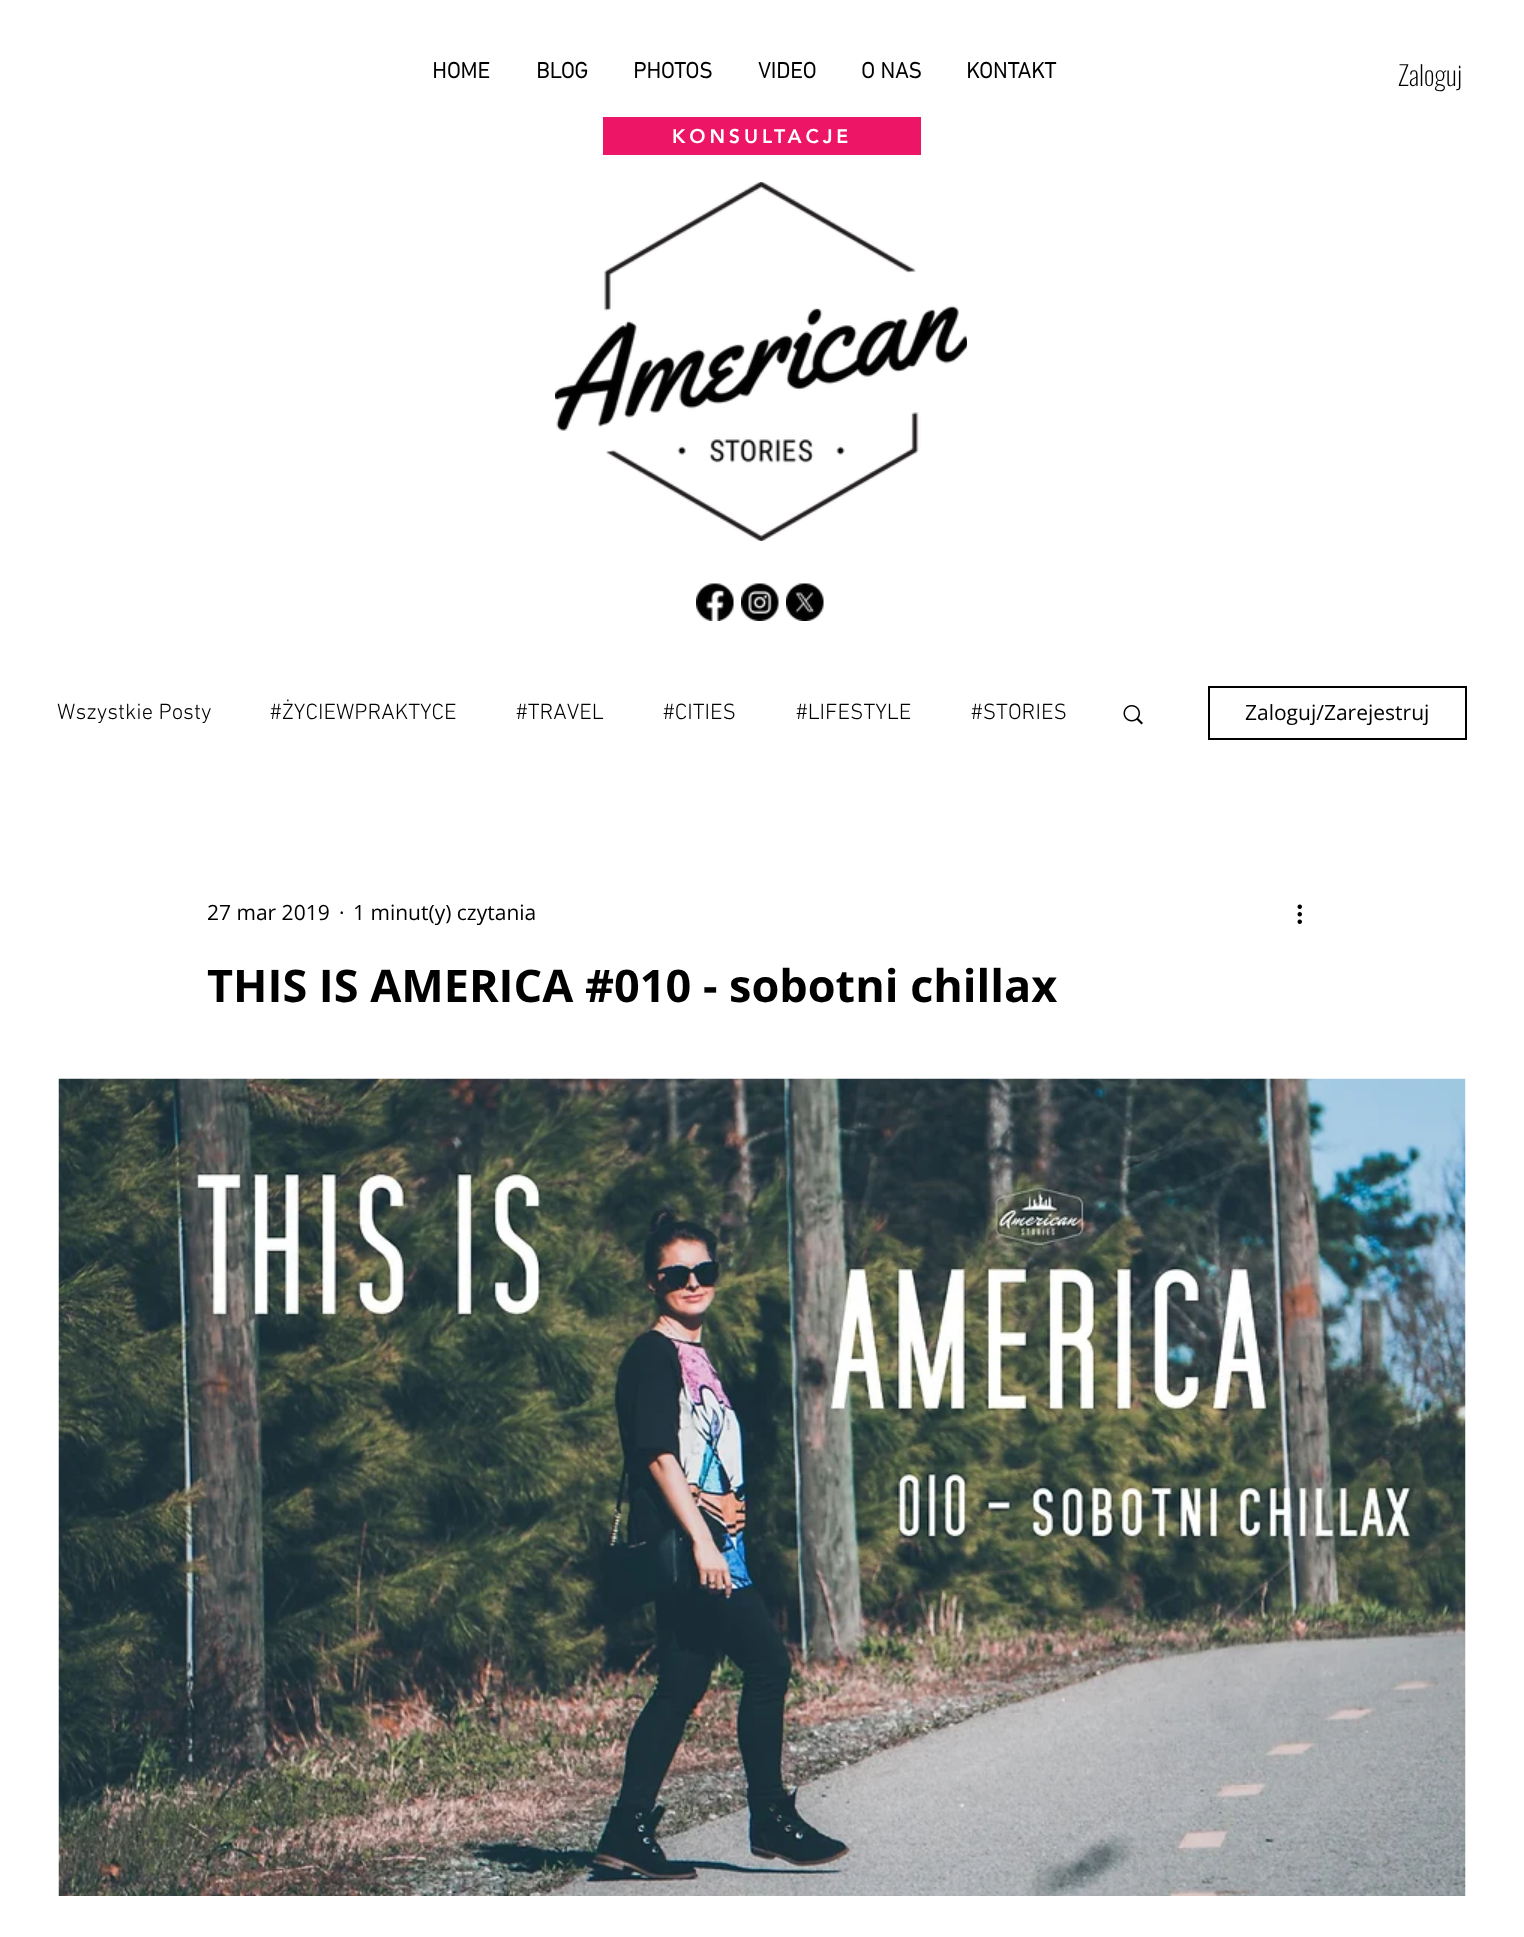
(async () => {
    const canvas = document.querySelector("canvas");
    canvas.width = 1524;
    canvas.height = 1937;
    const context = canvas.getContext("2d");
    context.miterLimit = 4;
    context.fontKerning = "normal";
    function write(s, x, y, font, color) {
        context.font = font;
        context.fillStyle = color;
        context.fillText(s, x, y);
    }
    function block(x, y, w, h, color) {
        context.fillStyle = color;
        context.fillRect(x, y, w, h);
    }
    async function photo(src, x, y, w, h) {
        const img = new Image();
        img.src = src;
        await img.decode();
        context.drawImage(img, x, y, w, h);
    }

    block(0, 0, 1524, 1937, "rgb(255, 255, 255)");
    write("HOME", 432, 78, "bold 22.5px 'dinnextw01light'", "rgb(0, 0, 0)");
    write("BLOG", 536, 78, "bold 22.5px 'dinnextw01light'", "rgb(0, 0, 0)");
    write("PHOTOS", 633, 78, "bold 22.5px 'dinnextw01light'", "rgb(0, 0, 0)");
    write("VIDEO", 758, 78, "bold 22.5px 'dinnextw01light'", "rgb(0, 0, 0)");
    write("O NAS", 861, 78, "bold 22.5px 'dinnextw01light'", "rgb(0, 0, 0)");
    write("KONTAKT", 966, 78, "bold 22.5px 'dinnextw01light'", "rgb(0, 0, 0)");
    write("Zaloguj", 1398, 86, "200 27px Oswald", "rgb(0, 0, 0)");
    block(603, 117, 318, 38, "rgb(237, 21, 102)");
    context.letterSpacing = "3.9px";
    write("KONSULTACJE", 672, 143, "900 19.5px 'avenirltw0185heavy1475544'", "rgb(255, 255, 255)");
    await photo("media/1.png", 555, 182, 413, 360);
    await photo("media/2.png", 696, 583, 38, 38);
    await photo("media/3.png", 741, 583, 38, 38);
    await photo("media/4.png", 786, 583, 38, 38);
    context.letterSpacing = "0px";
    write("Wszystkie Posty", 57, 719, "300 22.5px 'dinnextw01light'", "rgb(0, 0, 0)");
    write("#ŻYCIEWPRAKTYCE", 270, 719, "300 22.5px 'dinnextw01light'", "rgb(0, 0, 0)");
    write("#TRAVEL", 516, 719, "300 22.5px 'dinnextw01light'", "rgb(0, 0, 0)");
    write("#CITIES", 663, 719, "300 22.5px 'dinnextw01light'", "rgb(0, 0, 0)");
    write("#LIFESTYLE", 796, 719, "300 22.5px 'dinnextw01light'", "rgb(0, 0, 0)");
    write("#STORIES", 971, 719, "300 22.5px 'dinnextw01light'", "rgb(0, 0, 0)");
    await photo("media/5.png", 1123, 705, 20, 20);
    context.strokeStyle = "rgb(0, 0, 0)";
    context.lineWidth = 2;
    context.strokeRect(1209, 687, 257, 52);
    write("Zaloguj/Zarejestruj", 1245, 720, "21px Open Sans", "rgb(0, 0, 0)");
    write("27 mar 2019", 207, 920, "21px Open Sans", "rgb(0, 0, 0)");
    write("·", 339, 920, "21px Open Sans", "rgb(0, 0, 0)");
    write("1 minut(y) czytania", 353, 920, "21px Open Sans", "rgb(0, 0, 0)");
    await photo("media/6.png", 1297, 904, 5, 20);
    write("THIS IS AMERICA #010 - sobotni chillax", 207, 1002, "bold 45px Open Sans", "rgb(0, 0, 0)");
    await photo("media/7.png", 58, 1078, 1408, 818);
})();
